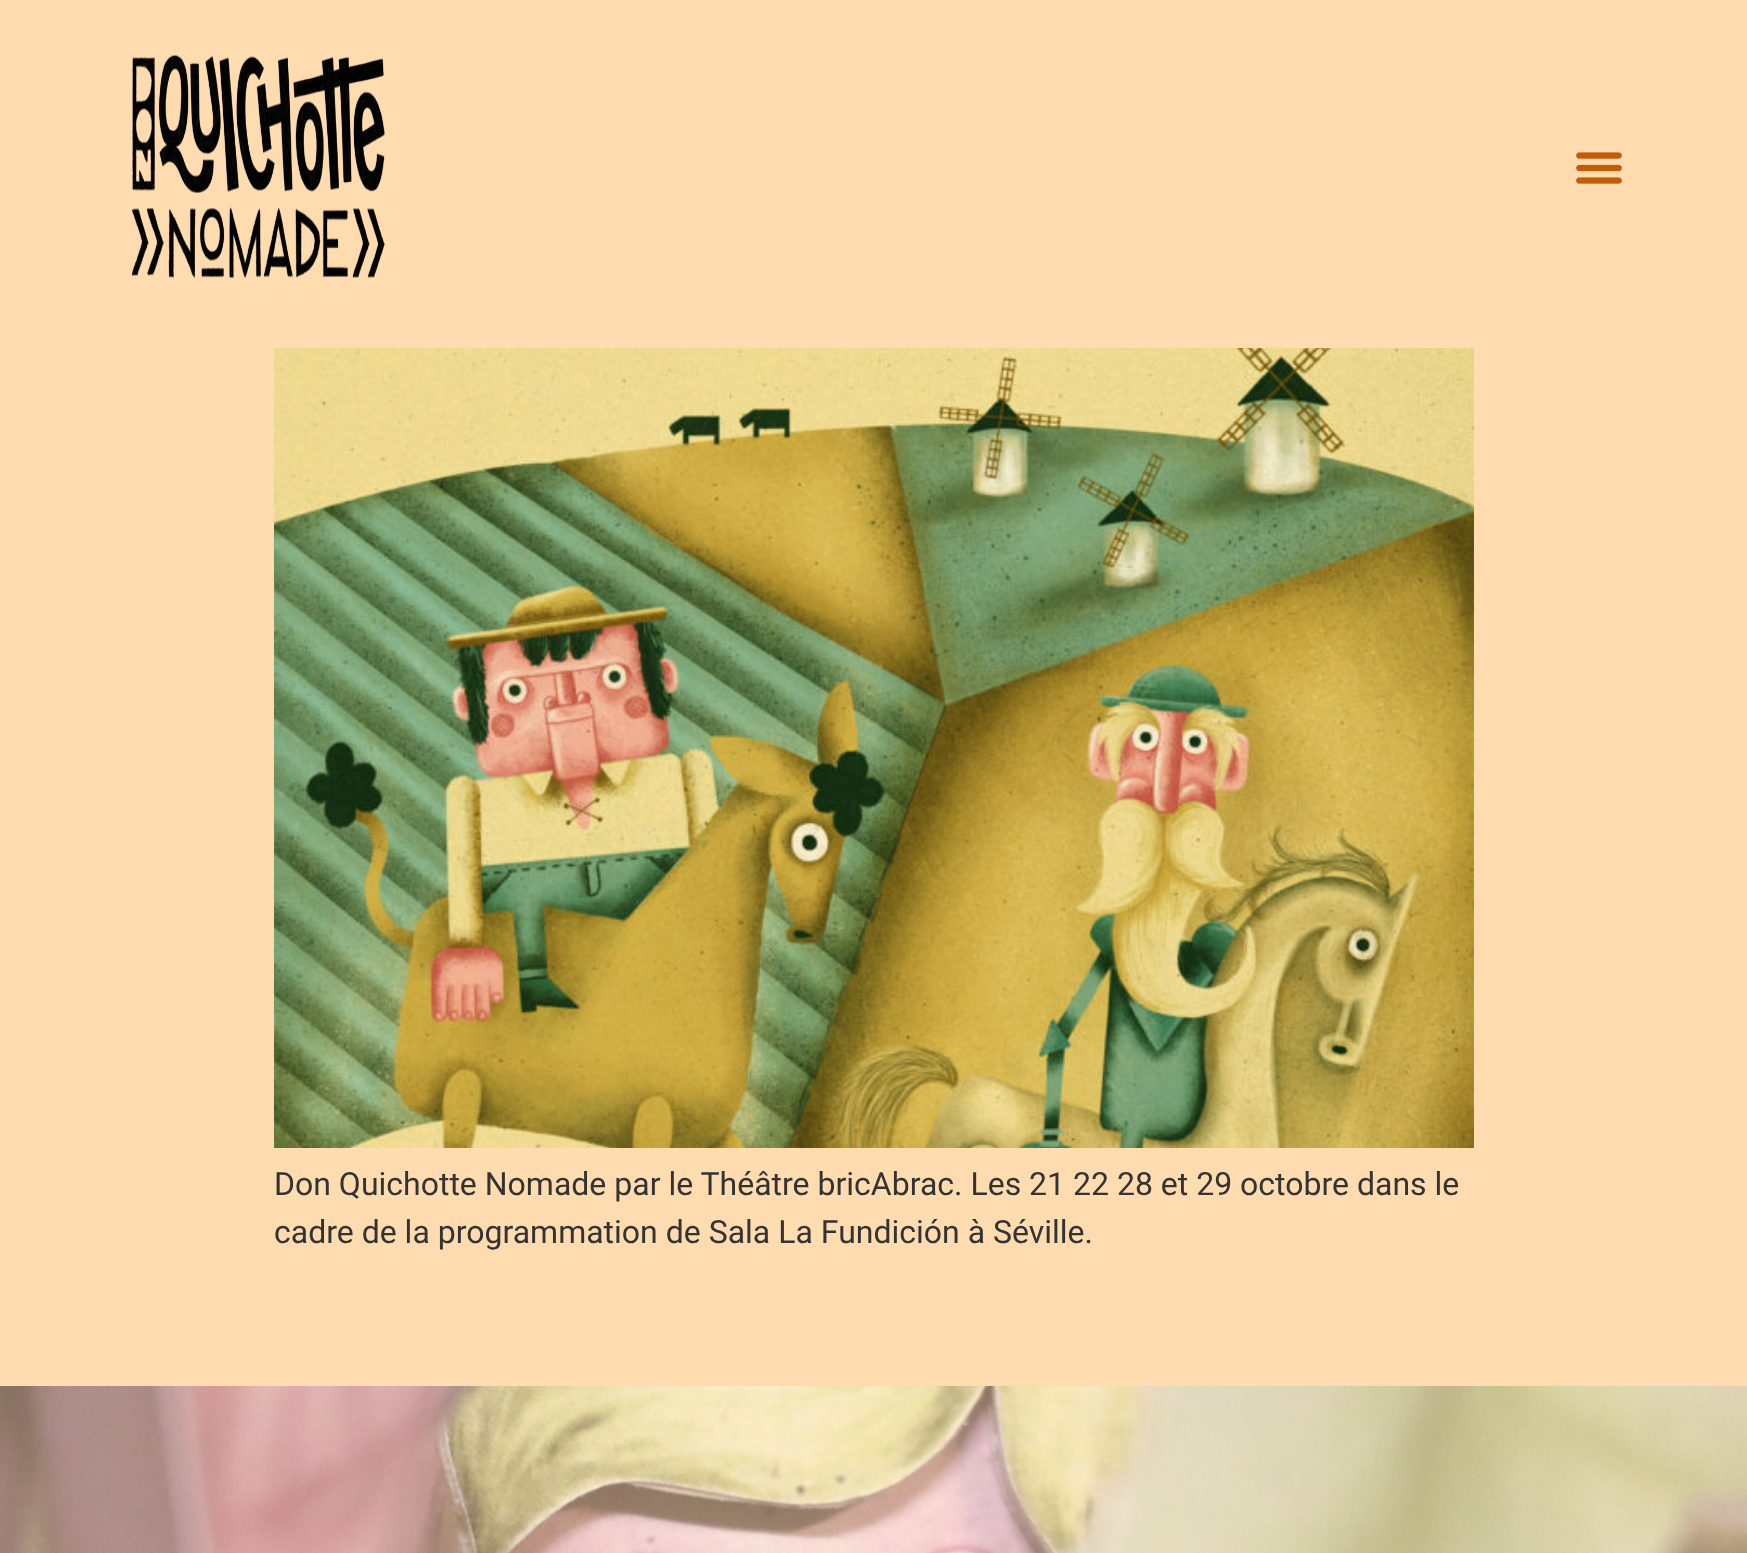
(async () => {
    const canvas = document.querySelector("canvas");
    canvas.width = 1747;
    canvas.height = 1553;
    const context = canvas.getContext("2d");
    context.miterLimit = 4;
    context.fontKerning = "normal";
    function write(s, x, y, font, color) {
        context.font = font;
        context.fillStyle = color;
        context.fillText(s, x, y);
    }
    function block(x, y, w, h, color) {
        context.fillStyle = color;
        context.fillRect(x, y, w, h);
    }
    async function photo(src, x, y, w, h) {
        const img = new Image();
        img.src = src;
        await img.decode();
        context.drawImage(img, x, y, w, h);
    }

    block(0, 0, 1747, 1553, "rgb(255, 220, 176)");
    await photo("media/1.png", 131, 54, 254, 225);
    await photo("media/2.png", 1576, 152, 46, 32);
    await photo("media/3.png", 274, 348, 1200, 800);
    write("Don Quichotte Nomade par le Théâtre bricAbrac. Les 21 22 28 et 29 octobre dans le", 274, 1195, "32px Roboto", "rgb(51, 51, 51)");
    write("cadre de la programmation de Sala La Fundición à Séville.", 274, 1243, "32px Roboto", "rgb(51, 51, 51)");
    await photo("media/4.png", 0, 1386, 1747, 167);
})();
